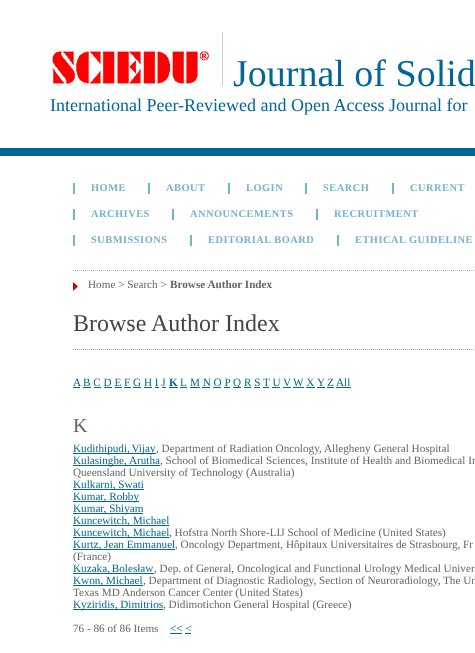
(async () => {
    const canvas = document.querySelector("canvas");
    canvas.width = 475;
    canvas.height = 653;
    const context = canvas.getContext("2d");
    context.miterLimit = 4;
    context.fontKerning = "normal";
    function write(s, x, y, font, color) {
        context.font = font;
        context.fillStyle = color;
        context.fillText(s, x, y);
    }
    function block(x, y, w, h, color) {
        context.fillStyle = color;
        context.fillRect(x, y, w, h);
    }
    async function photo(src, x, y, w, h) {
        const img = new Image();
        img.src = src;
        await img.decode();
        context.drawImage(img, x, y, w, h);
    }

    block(0, 0, 475, 653, "rgb(255, 255, 255)");
    block(0, 148, 475, 8, "rgb(0, 102, 153)");
    await photo("media/1.png", 50, 48, 160, 38);
    write("Journal of Solid", 233, 86, "38px Liberation Serif", "rgb(0, 102, 153)");
    block(222, 32, 1, 54, "rgb(204, 204, 204)");
    write("International Peer-Reviewed and Open Access Journal for", 50, 111, "18px Liberation Serif", "rgb(0, 102, 153)");
    context.letterSpacing = "0.5px";
    write("HOME", 91, 191, "bold 10.4px Liberation Serif", "rgb(114, 181, 204)");
    block(73, 183, 2, 11, "rgb(114, 181, 204)");
    write("ABOUT", 166, 191, "bold 10.4px Liberation Serif", "rgb(114, 181, 204)");
    block(148, 183, 2, 11, "rgb(114, 181, 204)");
    write("LOGIN", 246, 191, "bold 10.4px Liberation Serif", "rgb(114, 181, 204)");
    block(228, 183, 2, 11, "rgb(114, 181, 204)");
    write("SEARCH", 323, 191, "bold 10.4px Liberation Serif", "rgb(114, 181, 204)");
    block(305, 183, 2, 11, "rgb(114, 181, 204)");
    write("CURRENT", 410, 191, "bold 10.4px Liberation Serif", "rgb(114, 181, 204)");
    block(392, 183, 2, 11, "rgb(114, 181, 204)");
    write("ARCHIVES", 91, 217, "bold 10.4px Liberation Serif", "rgb(114, 181, 204)");
    block(73, 209, 2, 11, "rgb(114, 181, 204)");
    write("ANNOUNCEMENTS", 190, 217, "bold 10.4px Liberation Serif", "rgb(114, 181, 204)");
    block(172, 209, 2, 11, "rgb(114, 181, 204)");
    write("RECRUITMENT", 334, 217, "bold 10.4px Liberation Serif", "rgb(114, 181, 204)");
    block(316, 209, 2, 11, "rgb(114, 181, 204)");
    write("SUBMISSIONS", 91, 243, "bold 10.4px Liberation Serif", "rgb(114, 181, 204)");
    block(73, 235, 2, 11, "rgb(114, 181, 204)");
    write("EDITORIAL BOARD", 208, 243, "bold 10.4px Liberation Serif", "rgb(114, 181, 204)");
    block(190, 235, 2, 11, "rgb(114, 181, 204)");
    write("ETHICAL GUIDELINE", 355, 243, "bold 10.4px Liberation Serif", "rgb(114, 181, 204)");
    block(337, 235, 2, 11, "rgb(114, 181, 204)");
    await photo("media/2.png", 73, 282, 5, 9);
    context.beginPath();
    context.moveTo(73, 270.5);
    context.lineTo(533, 270.5);
    context.strokeStyle = "rgb(172, 172, 155)";
    context.setLineDash([1, 1]);
    context.stroke();
    context.letterSpacing = "0px";
    write("Home > Search >", 88, 288, "11.2px Liberation Serif", "rgb(102, 102, 102)");
    write("Browse Author Index", 170, 288, "bold 11.2px Liberation Serif", "rgb(102, 102, 102)");
    write("Browse Author Index", 73, 331, "24px Liberation Serif", "rgb(68, 68, 68)");
    context.beginPath();
    context.moveTo(73, 349.5);
    context.lineTo(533, 349.5);
    context.stroke();
    write("A", 73, 386, "11.2px Liberation Serif", "rgb(0, 102, 153)");
    block(73, 387, 7, 1, "rgb(0, 102, 153)");
    write("B C D E F G H I J", 83, 386, "11.2px Liberation Serif", "rgb(0, 102, 153)");
    block(83, 387, 8, 1, "rgb(0, 102, 153)");
    write("K", 169, 386, "bold 11.2px Liberation Serif", "rgb(0, 102, 153)");
    block(169, 387, 9, 1, "rgb(0, 102, 153)");
    write("L", 180, 386, "11.2px Liberation Serif", "rgb(0, 102, 153)");
    block(180, 387, 7, 1, "rgb(0, 102, 153)");
    write("M N O P", 190, 386, "11.2px Liberation Serif", "rgb(0, 102, 153)");
    block(190, 387, 10, 1, "rgb(0, 102, 153)");
    block(233, 387, 8, 1, "rgb(0, 102, 153)");
    write("Q R S T U V", 233, 386, "11.2px Liberation Serif", "rgb(0, 102, 153)");
    write("W X", 293, 386, "11.2px Liberation Serif", "rgb(0, 102, 153)");
    block(293, 387, 11, 1, "rgb(0, 102, 153)");
    write("Y", 317, 386, "11.2px Liberation Serif", "rgb(0, 102, 153)");
    block(317, 387, 8, 1, "rgb(0, 102, 153)");
    write("Z", 327, 386, "11.2px Liberation Serif", "rgb(0, 102, 153)");
    block(327, 387, 7, 1, "rgb(0, 102, 153)");
    write("All", 336, 386, "11.2px Liberation Serif", "rgb(0, 102, 153)");
    block(336, 387, 15, 1, "rgb(0, 102, 153)");
    block(94, 387, 7, 1, "rgb(0, 102, 153)");
    block(104, 387, 8, 1, "rgb(0, 102, 153)");
    block(115, 387, 7, 1, "rgb(0, 102, 153)");
    block(124, 387, 7, 1, "rgb(0, 102, 153)");
    block(133, 387, 8, 1, "rgb(0, 102, 153)");
    block(144, 387, 8, 1, "rgb(0, 102, 153)");
    block(155, 387, 4, 1, "rgb(0, 102, 153)");
    block(162, 387, 4, 1, "rgb(0, 102, 153)");
    block(202, 387, 8, 1, "rgb(0, 102, 153)");
    block(213, 387, 8, 1, "rgb(0, 102, 153)");
    block(224, 387, 6, 1, "rgb(0, 102, 153)");
    block(244, 387, 7, 1, "rgb(0, 102, 153)");
    block(254, 387, 6, 1, "rgb(0, 102, 153)");
    block(263, 387, 6, 1, "rgb(0, 102, 153)");
    block(272, 387, 8, 1, "rgb(0, 102, 153)");
    block(283, 387, 8, 1, "rgb(0, 102, 153)");
    block(306, 387, 9, 1, "rgb(0, 102, 153)");
    write("K", 73, 432, "20px Liberation Serif", "rgb(102, 102, 102)");
    block(73, 453, 83, 1, "rgb(0, 102, 153)");
    context.wordSpacing = "-1px";
    write("Kudithipudi, Vijay", 73, 452, "11.2px Liberation Serif", "rgb(0, 102, 153)");
    context.wordSpacing = "0px";
    write(", Department of Radiation Oncology, Allegheny General Hospital", 156, 452, "11.2px Liberation Serif", "rgb(102, 102, 102)");
    block(73, 465, 87, 1, "rgb(0, 102, 153)");
    write("Kulasinghe, Arutha", 73, 464, "11.2px Liberation Serif", "rgb(0, 102, 153)");
    write(", School of Biomedical Sciences, Institute of Health and Biomedical In", 160, 464, "11.2px Liberation Serif", "rgb(102, 102, 102)");
    write("Queensland University of Technology (Australia)", 73, 476, "11.2px Liberation Serif", "rgb(102, 102, 102)");
    block(73, 489, 71, 1, "rgb(0, 102, 153)");
    write("Kulkarni, Swati", 73, 488, "11.2px Liberation Serif", "rgb(0, 102, 153)");
    block(73, 501, 66, 1, "rgb(0, 102, 153)");
    write("Kumar, Robby", 73, 500, "11.2px Liberation Serif", "rgb(0, 102, 153)");
    block(73, 513, 70, 1, "rgb(0, 102, 153)");
    write("Kumar, Shiyam", 73, 512, "11.2px Liberation Serif", "rgb(0, 102, 153)");
    block(73, 525, 96, 1, "rgb(0, 102, 153)");
    write("Kuncewitch, Michael", 73, 524, "11.2px Liberation Serif", "rgb(0, 102, 153)");
    block(73, 537, 96, 1, "rgb(0, 102, 153)");
    write("Kuncewitch, Michael", 73, 536, "11.2px Liberation Serif", "rgb(0, 102, 153)");
    write(", Hofstra North Shore-LIJ School of Medicine (United States)", 169, 536, "11.2px Liberation Serif", "rgb(102, 102, 102)");
    block(73, 549, 102, 1, "rgb(0, 102, 153)");
    write("Kurtz, Jean Emmanuel", 73, 548, "11.2px Liberation Serif", "rgb(0, 102, 153)");
    write(", Oncology Department, Hôpitaux Universitaires de Strasbourg, Fr", 175, 548, "11.2px Liberation Serif", "rgb(102, 102, 102)");
    write("(France)", 73, 560, "11.2px Liberation Serif", "rgb(102, 102, 102)");
    block(73, 573, 81, 1, "rgb(0, 102, 153)");
    context.wordSpacing = "-1px";
    write("Kuzaka, Bolesław", 73, 572, "11.2px Liberation Serif", "rgb(0, 102, 153)");
    context.wordSpacing = "0px";
    write(", Dep. of General, Oncological and Functional Urology Medical Univer", 154, 572, "11.2px Liberation Serif", "rgb(102, 102, 102)");
    block(73, 585, 70, 1, "rgb(0, 102, 153)");
    write("Kwon, Michael", 73, 584, "11.2px Liberation Serif", "rgb(0, 102, 153)");
    write(", Department of Diagnostic Radiology, Section of Neuroradiology, The Un", 143, 584, "11.2px Liberation Serif", "rgb(102, 102, 102)");
    write("Texas MD Anderson Cancer Center (United States)", 73, 596, "11.2px Liberation Serif", "rgb(102, 102, 102)");
    block(73, 609, 90, 1, "rgb(0, 102, 153)");
    write("Kyziridis, Dimitrios", 73, 608, "11.2px Liberation Serif", "rgb(0, 102, 153)");
    write(", Didimotichon General Hospital (Greece)", 163, 608, "11.2px Liberation Serif", "rgb(102, 102, 102)");
    write("76 - 86 of 86 Items", 73, 632, "11.2px Liberation Serif", "rgb(102, 102, 102)");
    write("<< <", 170, 632, "11.2px Liberation Serif", "rgb(0, 102, 153)");
    block(170, 633, 12, 1, "rgb(0, 102, 153)");
    block(185, 633, 6, 1, "rgb(0, 102, 153)");
})();
